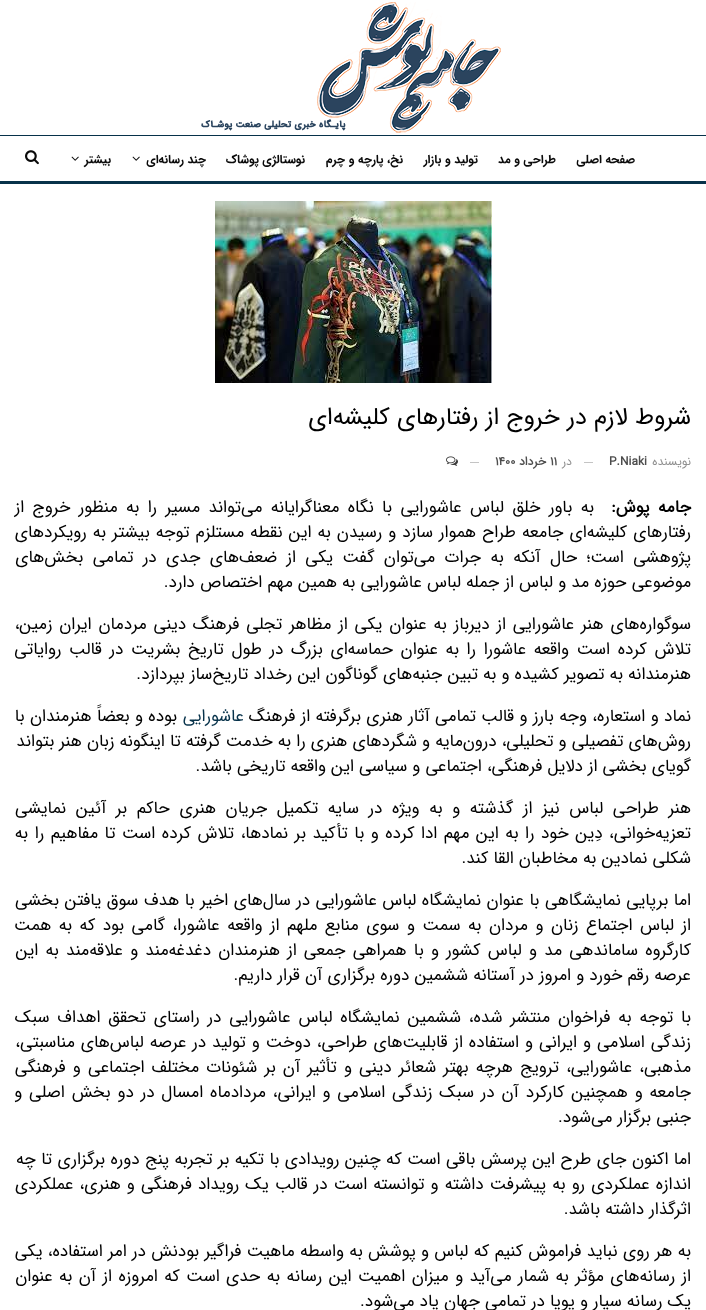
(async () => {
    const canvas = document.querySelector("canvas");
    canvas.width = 706;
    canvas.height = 1310;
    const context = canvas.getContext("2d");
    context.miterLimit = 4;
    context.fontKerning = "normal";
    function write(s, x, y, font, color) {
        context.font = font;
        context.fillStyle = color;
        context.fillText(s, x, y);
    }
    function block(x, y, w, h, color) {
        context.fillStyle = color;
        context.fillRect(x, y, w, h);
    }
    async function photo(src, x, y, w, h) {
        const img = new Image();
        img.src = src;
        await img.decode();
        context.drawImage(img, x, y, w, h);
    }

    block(0, 0, 706, 1310, "rgb(255, 255, 255)");
    await photo("media/1.png", 201, 2, 300, 131);
    block(0, 135, 706, 1, "rgb(7, 50, 74)");
    block(0, 181, 706, 3, "rgb(7, 50, 74)");
    context.direction = "rtl";
    write("صفحه اصلی", 635, 163, "bold 12px 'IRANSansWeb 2'", "rgb(10, 10, 10)");
    write("طراحی و مد", 556, 163, "bold 12px 'IRANSansWeb 2'", "rgb(10, 10, 10)");
    write("تولید و بازار", 478, 163, "bold 12px 'IRANSansWeb 2'", "rgb(10, 10, 10)");
    write("نخ، پارچه و چرم", 403, 163, "bold 12px 'IRANSansWeb 2'", "rgb(10, 10, 10)");
    write("نوستالژی پوشاک", 305, 163, "bold 12px 'IRANSansWeb 2'", "rgb(10, 10, 10)");
    write("چند رسانه‌ای", 206, 163, "bold 12px 'IRANSansWeb 2'", "rgb(10, 10, 10)");
    await photo("media/2.png", 132, 156, 8, 5);
    write("بیشتر", 111, 163, "bold 12px 'IRANSansWeb 2'", "rgb(10, 10, 10)");
    await photo("media/2.png", 71, 156, 8, 5);
    await photo("media/3.png", 25, 150, 14, 15);
    await photo("media/4.png", 215, 201, 277, 182);
    write("شروط لازم در خروج از رفتارهای کلیشه‌ای", 691, 424, "24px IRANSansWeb", "rgb(0, 0, 0)");
    write("نویسنده", 691, 465, "12px IRANSansWeb", "rgb(143, 143, 143)");
    context.direction = "ltr";
    write("P.Niaki", 609, 465, "bold 12px IRANSansWeb", "rgb(77, 77, 77)");
    block(584, 462, 9, 1, "rgb(196, 196, 196)");
    context.direction = "rtl";
    write("در", 572, 465, "12px IRANSansWeb", "rgb(143, 143, 143)");
    context.direction = "ltr";
    write("۱۱", 550, 465, "bold 12px IRANSansWeb", "rgb(77, 77, 77)");
    context.direction = "rtl";
    write("خرداد", 546, 465, "bold 12px IRANSansWeb", "rgb(77, 77, 77)");
    context.direction = "ltr";
    write("۱۴۰۰", 495, 465, "bold 12px IRANSansWeb", "rgb(77, 77, 77)");
    block(470, 462, 9, 1, "rgb(196, 196, 196)");
    await photo("media/5.png", 446, 456, 12, 10);
    context.wordSpacing = "3.25px";
    context.direction = "rtl";
    write("جامه پوش:", 691, 512, "bold 17px IRANSansWeb", "rgb(0, 0, 0)");
    write("به باور خلق لباس عاشورایی با نگاه معناگرایانه می‌تواند مسیر را به منظور خروج از", 594, 512, "17px IRANSansWeb", "rgb(0, 0, 0)");
    context.wordSpacing = "0.9px";
    write("رفتارهای کلیشه‌ای جامعه طراح هموار سازد و رسیدن به این نقطه مستلزم توجه بیشتر به رویکردهای", 691, 537, "17px IRANSansWeb", "rgb(0, 0, 0)");
    context.wordSpacing = "4.25px";
    write("پژوهشی است؛ حال آنکه به جرات می‌توان گفت یکی از ضعف‌های جدی در تمامی بخش‌های", 691, 562, "17px IRANSansWeb", "rgb(0, 0, 0)");
    context.wordSpacing = "0px";
    write("موضوعی حوزه مد و لباس از جمله لباس عاشورایی به همین مهم اختصاص دارد.", 691, 587, "17px IRANSansWeb", "rgb(0, 0, 0)");
    context.wordSpacing = "1.75px";
    write("سوگواره‌های هنر عاشورایی از دیرباز به عنوان یکی از مظاهر تجلی فرهنگ دینی مردمان ایران زمین،", 691, 629, "17px IRANSansWeb", "rgb(0, 0, 0)");
    context.wordSpacing = "2.5px";
    write("تلاش کرده است واقعه عاشورا را به عنوان حماسه‌ای بزرگ در طول تاریخ بشریت در قالب روایاتی", 691, 654, "17px IRANSansWeb", "rgb(0, 0, 0)");
    context.wordSpacing = "0px";
    write("هنرمندانه به تصویر کشیده و به تبین جنبه‌های گوناگون این رخداد تاریخ‌ساز بپردازد.", 691, 679, "17px IRANSansWeb", "rgb(0, 0, 0)");
    context.wordSpacing = "0.25px";
    write("نماد و استعاره، وجه بارز و قالب تمامی آثار هنری برگرفته از فرهنگ", 691, 721, "17px IRANSansWeb", "rgb(0, 0, 0)");
    context.wordSpacing = "0px";
    write("عاشورایی", 244, 721, "17px IRANSansWeb", "rgb(7, 50, 74)");
    context.wordSpacing = "0.25px";
    write("بوده و بعضاً هنرمندان با", 177, 721, "17px IRANSansWeb", "rgb(0, 0, 0)");
    context.wordSpacing = "0px";
    write("روش‌های تفصیلی و تحلیلی، درون‌مایه و شگردهای هنری را به خدمت گرفته تا اینگونه زبان هنر بتواند", 691, 746, "17px IRANSansWeb", "rgb(0, 0, 0)");
    write("گویای بخشی از دلایل فرهنگی، اجتماعی و سیاسی این واقعه تاریخی باشد.", 691, 771, "17px IRANSansWeb", "rgb(0, 0, 0)");
    context.wordSpacing = "4.5px";
    write("هنر طراحی لباس نیز از گذشته و به ویژه در سایه تکمیل جریان هنری حاکم بر آئین نمایشی", 691, 813, "17px IRANSansWeb", "rgb(0, 0, 0)");
    context.wordSpacing = "1.4px";
    write("تعزیه‌خوانی، دِین خود را به این مهم ادا کرده و با تأکید بر نمادها، تلاش کرده است تا مفاهیم را به", 691, 838, "17px IRANSansWeb", "rgb(0, 0, 0)");
    context.wordSpacing = "0px";
    write("شکلی نمادین به مخاطبان القا کند.", 691, 863, "17px IRANSansWeb", "rgb(0, 0, 0)");
    context.wordSpacing = "0.4px";
    write("اما برپایی نمایشگاهی با عنوان نمایشگاه لباس عاشورایی در سال‌های اخیر با هدف سوق یافتن بخشی", 691, 905, "17px IRANSansWeb", "rgb(0, 0, 0)");
    context.wordSpacing = "2.4px";
    write("از لباس اجتماع زنان و مردان به سمت و سوی منابع ملهم از واقعه عاشورا، گامی بود که به همت", 691, 930, "17px IRANSansWeb", "rgb(0, 0, 0)");
    context.wordSpacing = "2.1px";
    write("کارگروه ساماندهی مد و لباس کشور و با همراهی جمعی از هنرمندان دغدغه‌مند و علاقه‌مند به این", 691, 955, "17px IRANSansWeb", "rgb(0, 0, 0)");
    context.wordSpacing = "0px";
    write("عرصه رقم خورد و امروز در آستانه ششمین دوره برگزاری آن قرار داریم.", 691, 980, "17px IRANSansWeb", "rgb(0, 0, 0)");
    context.wordSpacing = "2.75px";
    write("با توجه به فراخوان منتشر شده، ششمین نمایشگاه لباس عاشورایی در راستای تحقق اهداف سبک", 691, 1022, "17px IRANSansWeb", "rgb(0, 0, 0)");
    context.wordSpacing = "0.8px";
    write("زندگی اسلامی و ایرانی و استفاده از قابلیت‌های طراحی، دوخت و تولید در عرصه لباس‌های مناسبتی،", 691, 1047, "17px IRANSansWeb", "rgb(0, 0, 0)");
    context.wordSpacing = "2px";
    write("مذهبی، عاشورایی، ترویج هرچه بهتر شعائر دینی و تأثیر آن بر شئونات مختلف اجتماعی و فرهنگی", 691, 1072, "17px IRANSansWeb", "rgb(0, 0, 0)");
    context.wordSpacing = "1.75px";
    write("جامعه و همچنین کارکرد آن در سبک زندگی اسلامی و ایرانی، مردادماه امسال در دو بخش اصلی و", 691, 1097, "17px IRANSansWeb", "rgb(0, 0, 0)");
    context.wordSpacing = "0px";
    write("جنبی برگزار می‌شود.", 691, 1122, "17px IRANSansWeb", "rgb(0, 0, 0)");
    context.wordSpacing = "0.3px";
    write("اما اکنون جای طرح این پرسش باقی است که چنین رویدادی با تکیه بر تجربه پنج دوره برگزاری تا چه", 691, 1164, "17px IRANSansWeb", "rgb(0, 0, 0)");
    context.wordSpacing = "1px";
    write("اندازه عملکردی رو به پیشرفت داشته و توانسته است در قالب یک رویداد فرهنگی و هنری، عملکردی", 691, 1189, "17px IRANSansWeb", "rgb(0, 0, 0)");
    context.wordSpacing = "0px";
    write("اثرگذار داشته باشد.", 691, 1214, "17px IRANSansWeb", "rgb(0, 0, 0)");
    context.wordSpacing = "0.25px";
    write("به هر روی نباید فراموش کنیم که لباس و پوشش به واسطه ماهیت فراگیر بودنش در امر استفاده، یکی", 691, 1256, "17px IRANSansWeb", "rgb(0, 0, 0)");
    context.wordSpacing = "1.3px";
    write("از رسانه‌های مؤثر به شمار می‌آید و میزان اهمیت این رسانه به حدی است که امروزه از آن به عنوان", 691, 1281, "17px IRANSansWeb", "rgb(0, 0, 0)");
    context.wordSpacing = "0px";
    write("یک رسانه سیار و پویا در تمامی جهان یاد می‌شود.", 691, 1306, "17px IRANSansWeb", "rgb(0, 0, 0)");
})();
